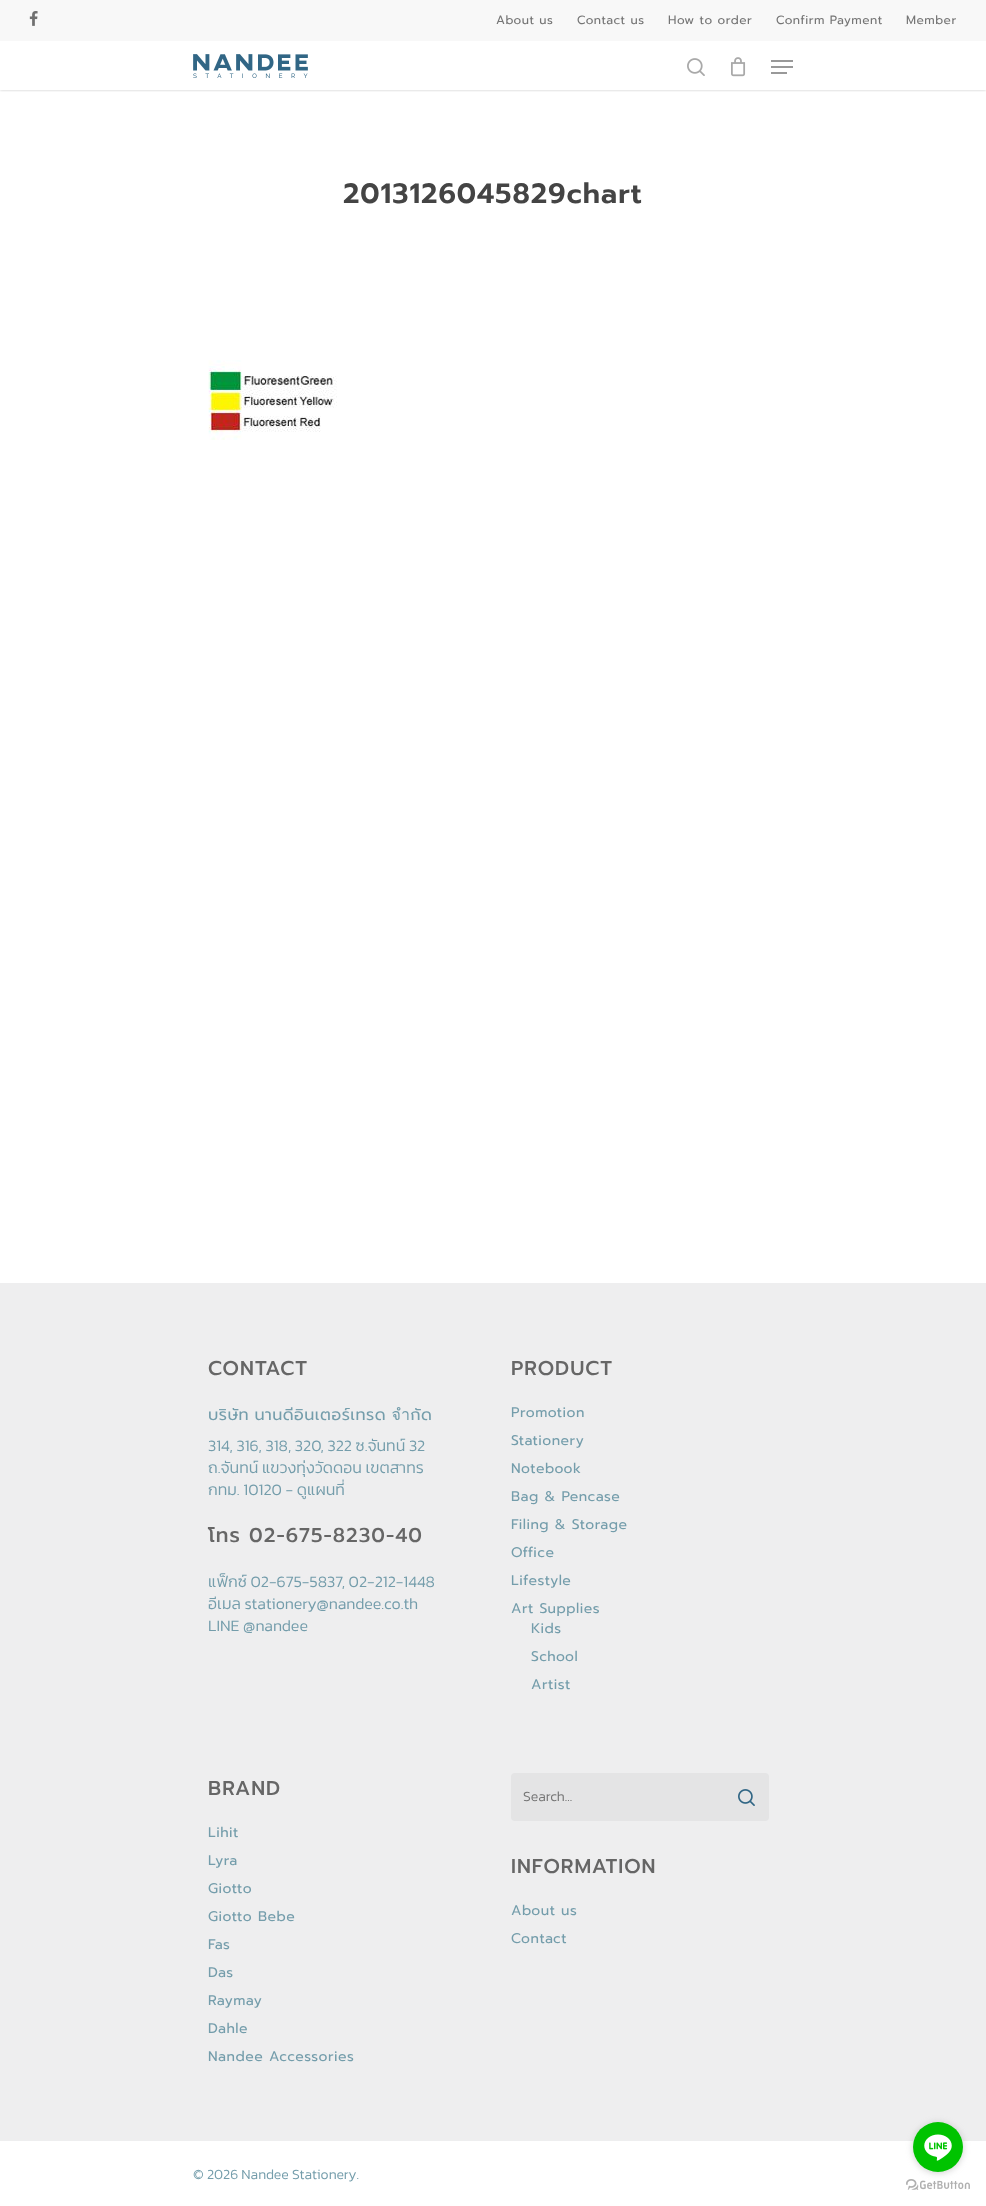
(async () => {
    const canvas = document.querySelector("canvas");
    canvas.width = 986;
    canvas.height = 2206;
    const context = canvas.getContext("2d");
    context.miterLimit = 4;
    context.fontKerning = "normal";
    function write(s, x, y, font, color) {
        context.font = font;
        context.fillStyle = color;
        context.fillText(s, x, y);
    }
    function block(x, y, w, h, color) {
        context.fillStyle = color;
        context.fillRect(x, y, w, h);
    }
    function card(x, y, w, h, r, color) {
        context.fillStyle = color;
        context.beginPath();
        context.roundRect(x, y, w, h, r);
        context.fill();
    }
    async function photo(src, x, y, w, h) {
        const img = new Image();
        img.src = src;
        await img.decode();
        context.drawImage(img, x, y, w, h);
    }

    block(0, 0, 986, 2206, "rgb(255, 255, 255)");
    context.save();
    context.beginPath();
    context.rect(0, 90, 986, 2);
    context.clip();
    context.fillStyle = "rgba(0, 0, 0, 0.22)";
    context.filter = "blur(1.5px)";
    context.beginPath();
    context.rect(0, 0, 986, 90);
    context.fill();
    context.filter = "none";
    context.restore();
    block(0, 0, 986, 41, "rgb(248, 248, 248)");
    await photo("media/1.png", 29, 11, 9, 15);
    context.letterSpacing = "0.5px";
    write("About us", 496, 24, "12px Prompt", "rgb(117, 117, 117)");
    write("Contact us", 577, 24, "12px Prompt", "rgb(117, 117, 117)");
    write("How to order", 668, 24, "12px Prompt", "rgb(117, 117, 117)");
    write("Confirm Payment", 776, 24, "12px Prompt", "rgb(117, 117, 117)");
    write("Member", 906, 24, "12px Prompt", "rgb(117, 117, 117)");
    await photo("media/2.png", 193, 54, 115, 24);
    await photo("media/3.png", 687, 58, 18, 18);
    await photo("media/4.png", 731, 57, 15, 20);
    block(771, 60, 22, 2, "rgb(153, 153, 153)");
    block(771, 72, 16, 2, "rgb(153, 153, 153)");
    block(771, 66, 22, 2, "rgb(153, 153, 153)");
    context.letterSpacing = "1px";
    write("2013126045829chart", 343, 203, "600 28px Prompt", "rgb(68, 68, 68)");
    await photo("media/5.png", 208, 360, 129, 80);
    block(0, 1283, 986, 858, "rgb(238, 238, 239)");
    write("CONTACT", 208, 1375, "500 20px Prompt", "rgb(102, 102, 102)");
    context.letterSpacing = "0.5px";
    context.wordSpacing = "-1px";
    write("บริษัท นานดีอินเตอร์เทรด จำกัด", 208, 1420, "16px Prompt", "rgb(116, 157, 171)");
    context.letterSpacing = "0px";
    context.wordSpacing = "0px";
    write("314, 316, 318, 320, 322 ซ.จันทน์ 32", 208, 1451, "300 16px Kanit", "rgb(116, 157, 171)");
    write("ถ.จันทน์ แขวงทุ่งวัดดอน เขตสาทร", 208, 1473, "300 16px Kanit", "rgb(116, 157, 171)");
    write("กทม. 10120 - ดูแผนที่", 208, 1495, "300 16px Kanit", "rgb(116, 157, 171)");
    context.letterSpacing = "1px";
    write("โทร 02-675-8230-40", 208, 1542, "500 20px Prompt", "rgb(102, 102, 102)");
    context.letterSpacing = "0px";
    write("แฟ็กซ์ 02-675-5837, 02-212-1448", 208, 1587, "300 16px Kanit", "rgb(116, 157, 171)");
    write("อีเมล stationery@nandee.co.th", 208, 1609, "300 16px Kanit", "rgb(116, 157, 171)");
    write("LINE @nandee", 208, 1631, "300 16px Kanit", "rgb(116, 157, 171)");
    context.letterSpacing = "1px";
    write("PRODUCT", 511, 1375, "500 20px Prompt", "rgb(102, 102, 102)");
    context.letterSpacing = "0.5px";
    write("Promotion", 511, 1417, "14px Prompt", "rgb(116, 157, 171)");
    write("Stationery", 511, 1445, "14px Prompt", "rgb(116, 157, 171)");
    write("Notebook", 511, 1473, "14px Prompt", "rgb(116, 157, 171)");
    write("Bag & Pencase", 511, 1501, "14px Prompt", "rgb(116, 157, 171)");
    write("Filing & Storage", 511, 1529, "14px Prompt", "rgb(116, 157, 171)");
    write("Office", 511, 1557, "14px Prompt", "rgb(116, 157, 171)");
    write("Lifestyle", 511, 1585, "14px Prompt", "rgb(116, 157, 171)");
    write("Art Supplies", 511, 1613, "14px Prompt", "rgb(116, 157, 171)");
    write("Kids", 531, 1633, "14px Prompt", "rgb(116, 157, 171)");
    write("School", 531, 1661, "14px Prompt", "rgb(116, 157, 171)");
    write("Artist", 531, 1689, "14px Prompt", "rgb(116, 157, 171)");
    context.letterSpacing = "1px";
    write("BRAND", 208, 1795, "500 20px Prompt", "rgb(102, 102, 102)");
    context.letterSpacing = "0.5px";
    write("Lihit", 208, 1837, "14px Prompt", "rgb(116, 157, 171)");
    write("Lyra", 208, 1865, "14px Prompt", "rgb(116, 157, 171)");
    write("Giotto", 208, 1893, "14px Prompt", "rgb(116, 157, 171)");
    write("Giotto Bebe", 208, 1921, "14px Prompt", "rgb(116, 157, 171)");
    write("Fas", 208, 1949, "14px Prompt", "rgb(116, 157, 171)");
    write("Das", 208, 1977, "14px Prompt", "rgb(116, 157, 171)");
    write("Raymay", 208, 2005, "14px Prompt", "rgb(116, 157, 171)");
    write("Dahle", 208, 2033, "14px Prompt", "rgb(116, 157, 171)");
    write("Nandee Accessories", 208, 2061, "14px Prompt", "rgb(116, 157, 171)");
    card(511, 1773, 258, 48, 4, "rgb(228, 228, 229)");
    context.letterSpacing = "0px";
    write("Search...", 523, 1801, "300 14px Kanit", "rgb(117, 117, 117)");
    await photo("media/6.png", 738, 1789, 17, 17);
    context.letterSpacing = "1px";
    write("INFORMATION", 511, 1873, "500 20px Prompt", "rgb(102, 102, 102)");
    context.letterSpacing = "0.5px";
    write("About us", 511, 1915, "14px Prompt", "rgb(116, 157, 171)");
    write("Contact", 511, 1943, "14px Prompt", "rgb(116, 157, 171)");
    context.letterSpacing = "0px";
    write("© 2026 Nandee Stationery.", 193, 2179, "300 14px Kanit", "rgb(116, 157, 171)");
    await photo("media/8.png", 906, 2179, 64, 11);
    context.fillStyle = "rgba(136, 136, 136, 0.4)";
    context.filter = "blur(3.5px)";
    context.beginPath();
    context.roundRect(913, 2123, 50, 50, 25);
    context.fill();
    context.filter = "none";
    context.fillStyle = "rgb(0, 195, 0)";
    context.beginPath();
    context.arc(938, 2147, 25, 0, Math.PI * 2);
    context.fill();
    await photo("media/7.png", 924, 2134, 28, 27);
})();
